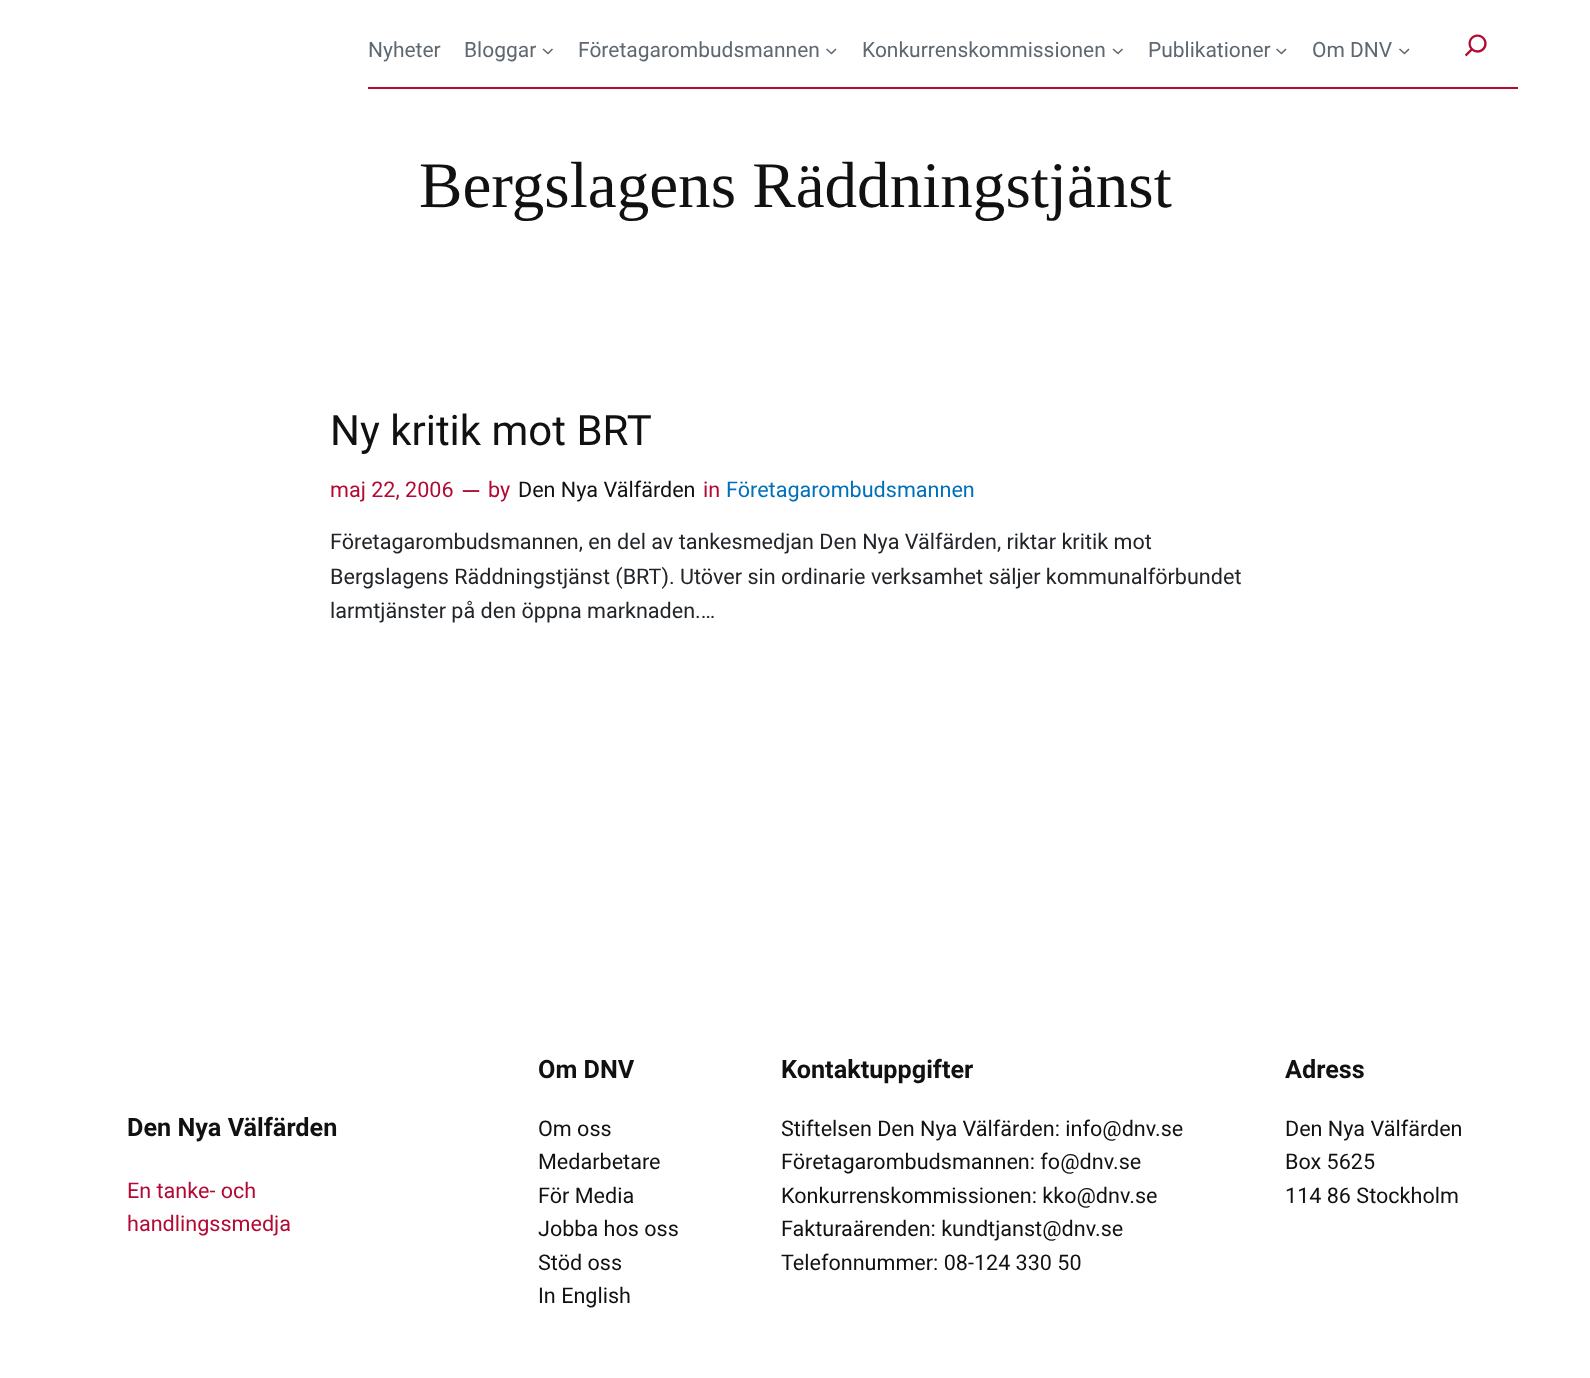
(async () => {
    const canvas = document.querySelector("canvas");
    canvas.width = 1590;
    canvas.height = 1378;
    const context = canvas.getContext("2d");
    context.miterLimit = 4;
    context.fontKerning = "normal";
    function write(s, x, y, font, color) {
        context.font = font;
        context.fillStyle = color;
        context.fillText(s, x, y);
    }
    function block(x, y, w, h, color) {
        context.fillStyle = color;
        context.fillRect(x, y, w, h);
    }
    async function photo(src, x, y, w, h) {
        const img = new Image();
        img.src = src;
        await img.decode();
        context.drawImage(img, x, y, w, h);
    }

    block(0, 0, 1590, 1378, "rgb(255, 255, 255)");
    block(368, 87, 1150, 2, "rgb(179, 9, 51)");
    write("Nyheter", 368, 57, "21px Roboto", "rgb(95, 104, 113)");
    write("Bloggar", 464, 57, "21px Roboto", "rgb(95, 104, 113)");
    context.beginPath();
    context.moveTo(543, 49);
    context.lineTo(548, 53.5);
    context.lineTo(552.5, 49);
    context.strokeStyle = "rgb(95, 104, 113)";
    context.lineWidth = 1.6;
    context.stroke();
    write("Företagarombudsmannen", 578, 57, "21px Roboto", "rgb(95, 104, 113)");
    context.beginPath();
    context.moveTo(826.5, 49);
    context.lineTo(831.5, 53.5);
    context.lineTo(836, 49);
    context.stroke();
    write("Konkurrenskommissionen", 862, 57, "21px Roboto", "rgb(95, 104, 113)");
    context.beginPath();
    context.moveTo(1113, 49);
    context.lineTo(1118, 53.5);
    context.lineTo(1122.5, 49);
    context.stroke();
    write("Publikationer", 1148, 57, "21px Roboto", "rgb(95, 104, 113)");
    context.beginPath();
    context.moveTo(1276.5, 49);
    context.lineTo(1281.5, 53.5);
    context.lineTo(1286, 49);
    context.stroke();
    write("Om DNV", 1312, 57, "21px Roboto", "rgb(95, 104, 113)");
    context.beginPath();
    context.moveTo(1399.5, 49);
    context.lineTo(1404.5, 53.5);
    context.lineTo(1409, 49);
    context.stroke();
    await photo("media/1.png", 1464, 34, 23, 23);
    write("Bergslagens Räddningstjänst", 419, 207, "65.1px Liberation Serif", "rgb(17, 17, 17)");
    write("Ny kritik mot BRT", 330, 445, "42px Roboto", "rgb(17, 17, 17)");
    write("maj 22, 2006", 330, 497, "21.6px Roboto", "rgb(179, 9, 51)");
    write("—", 461, 500, "25.25px Roboto", "rgb(179, 9, 51)");
    write("by", 488, 497, "21.6px Roboto", "rgb(179, 9, 51)");
    write("Den Nya Välfärden", 518, 497, "21.6px Roboto", "rgb(17, 17, 17)");
    write("in", 703, 497, "21.6px Roboto", "rgb(179, 9, 51)");
    write("Företagarombudsmannen", 726, 497, "21.6px Roboto", "rgb(0, 112, 186)");
    write("Företagarombudsmannen, en del av tankesmedjan Den Nya Välfärden, riktar kritik mot", 330, 549, "21.6px Roboto", "rgb(33, 37, 41)");
    write("Bergslagens Räddningstjänst (BRT). Utöver sin ordinarie verksamhet säljer kommunalförbundet", 330, 584, "21.6px Roboto", "rgb(33, 37, 41)");
    write("larmtjänster på den öppna marknaden.…", 330, 618, "21.6px Roboto", "rgb(33, 37, 41)");
    write("Den Nya Välfärden", 127, 1136, "bold 25.25px Roboto", "rgb(17, 17, 17)");
    write("En tanke- och", 127, 1198, "21.6px Roboto", "rgb(179, 9, 51)");
    write("handlingssmedja", 127, 1231, "21.6px Roboto", "rgb(179, 9, 51)");
    write("Om DNV", 538, 1078, "bold 25.25px Roboto", "rgb(17, 17, 17)");
    write("Om oss", 538, 1136, "21.6px Roboto", "rgb(17, 17, 17)");
    write("Medarbetare", 538, 1169, "21.6px Roboto", "rgb(17, 17, 17)");
    write("För Media", 538, 1203, "21.6px Roboto", "rgb(17, 17, 17)");
    write("Jobba hos oss", 538, 1236, "21.6px Roboto", "rgb(17, 17, 17)");
    write("Stöd oss", 538, 1270, "21.6px Roboto", "rgb(17, 17, 17)");
    write("In English", 538, 1303, "21.6px Roboto", "rgb(17, 17, 17)");
    write("Kontaktuppgifter", 781, 1078, "bold 25.25px Roboto", "rgb(17, 17, 17)");
    write("Stiftelsen Den Nya Välfärden: info@dnv.se", 781, 1136, "21.6px Roboto", "rgb(17, 17, 17)");
    write("Företagarombudsmannen: fo@dnv.se", 781, 1169, "21.6px Roboto", "rgb(17, 17, 17)");
    write("Konkurrenskommissionen: kko@dnv.se", 781, 1203, "21.6px Roboto", "rgb(17, 17, 17)");
    write("Fakturaärenden: kundtjanst@dnv.se", 781, 1236, "21.6px Roboto", "rgb(17, 17, 17)");
    write("Telefonnummer: 08-124 330 50", 781, 1270, "21.6px Roboto", "rgb(17, 17, 17)");
    write("Adress", 1285, 1078, "bold 25.25px Roboto", "rgb(17, 17, 17)");
    write("Den Nya Välfärden", 1285, 1136, "21.6px Roboto", "rgb(17, 17, 17)");
    write("Box 5625", 1285, 1169, "21.6px Roboto", "rgb(17, 17, 17)");
    write("114 86 Stockholm", 1285, 1203, "21.6px Roboto", "rgb(17, 17, 17)");
})();
